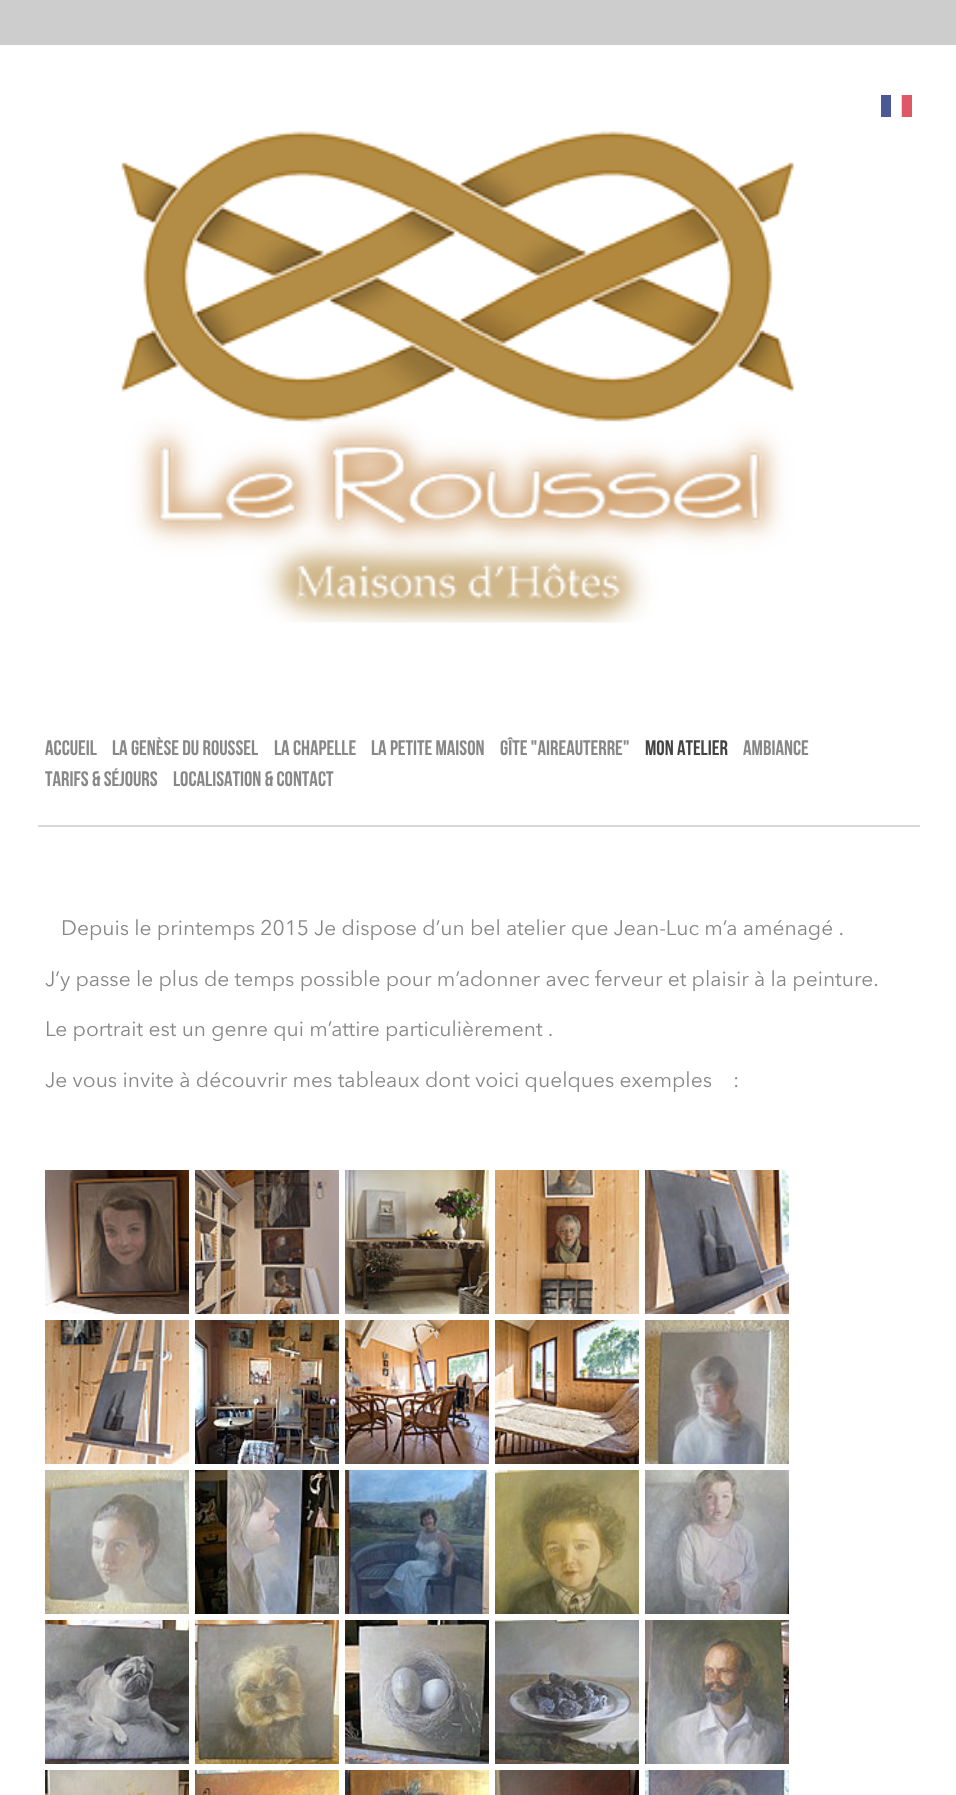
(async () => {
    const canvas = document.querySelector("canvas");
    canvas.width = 956;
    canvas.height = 1795;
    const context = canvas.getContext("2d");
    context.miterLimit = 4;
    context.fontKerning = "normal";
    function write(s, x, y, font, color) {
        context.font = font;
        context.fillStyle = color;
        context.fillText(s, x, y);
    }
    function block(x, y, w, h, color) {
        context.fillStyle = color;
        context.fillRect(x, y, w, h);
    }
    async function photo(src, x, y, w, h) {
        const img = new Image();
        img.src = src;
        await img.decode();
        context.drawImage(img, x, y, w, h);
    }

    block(0, 0, 956, 1795, "rgb(205, 205, 205)");
    block(0, 45, 956, 1750, "rgb(255, 255, 255)");
    block(38, 825, 882, 2, "rgb(216, 216, 216)");
    await photo("media/1.png", 881, 95, 31, 22);
    await photo("media/2.png", 121, 131, 673, 492);
    write("ACCUEIL", 45, 755, "21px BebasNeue", "rgb(136, 136, 136)");
    write("LA GENÈSE DU ROUSSEL", 112, 755, "21px BebasNeue", "rgb(136, 136, 136)");
    write("LA CHAPELLE", 274, 755, "21px BebasNeue", "rgb(136, 136, 136)");
    write("LA PETITE MAISON", 371, 755, "21px BebasNeue", "rgb(136, 136, 136)");
    write("GÎTE \"AIREAUTERRE\"", 500, 755, "21px BebasNeue", "rgb(136, 136, 136)");
    write("MON ATELIER", 645, 755, "21px BebasNeue", "rgb(68, 68, 68)");
    write("AMBIANCE", 743, 755, "21px BebasNeue", "rgb(136, 136, 136)");
    write("TARIFS & SÉJOURS", 45, 786, "21px BebasNeue", "rgb(136, 136, 136)");
    write("LOCALISATION & CONTACT", 173, 786, "21px BebasNeue", "rgb(136, 136, 136)");
    write("Depuis le printemps 2015 Je dispose d’un bel atelier que Jean-Luc m’a aménagé .", 61, 935, "21px Avenir Next", "rgb(136, 136, 136)");
    write("J’y passe le plus de temps possible pour m’adonner avec ferveur et plaisir à la peinture.", 45, 986, "21px Avenir Next", "rgb(136, 136, 136)");
    write("Le portrait est un genre qui m’attire particulièrement .", 45, 1036, "21px Avenir Next", "rgb(136, 136, 136)");
    write("Je vous invite à découvrir mes tableaux dont voici quelques exemples", 45, 1087, "21px Avenir Next", "rgb(136, 136, 136)");
    write(":", 733, 1087, "21px Avenir Next", "rgb(136, 136, 136)");
    await photo("media/3.png", 45, 1170, 144, 144);
    await photo("media/4.png", 195, 1170, 144, 144);
    await photo("media/5.png", 345, 1170, 144, 144);
    await photo("media/6.png", 495, 1170, 144, 144);
    await photo("media/7.png", 645, 1170, 144, 144);
    await photo("media/8.png", 45, 1320, 144, 144);
    await photo("media/9.png", 195, 1320, 144, 144);
    await photo("media/10.png", 345, 1320, 144, 144);
    await photo("media/11.png", 495, 1320, 144, 144);
    await photo("media/12.png", 645, 1320, 144, 144);
    await photo("media/13.png", 45, 1470, 144, 144);
    await photo("media/14.png", 195, 1470, 144, 144);
    await photo("media/15.png", 345, 1470, 144, 144);
    await photo("media/16.png", 495, 1470, 144, 144);
    await photo("media/17.png", 645, 1470, 144, 144);
    await photo("media/18.png", 45, 1620, 144, 144);
    await photo("media/19.png", 195, 1620, 144, 144);
    await photo("media/20.png", 345, 1620, 144, 144);
    await photo("media/21.png", 495, 1620, 144, 144);
    await photo("media/22.png", 645, 1620, 144, 144);
    await photo("media/23.png", 45, 1770, 144, 25);
    await photo("media/24.png", 195, 1770, 144, 25);
    await photo("media/25.png", 345, 1770, 144, 25);
    await photo("media/26.png", 495, 1770, 144, 25);
    await photo("media/27.png", 645, 1770, 144, 25);
})();
